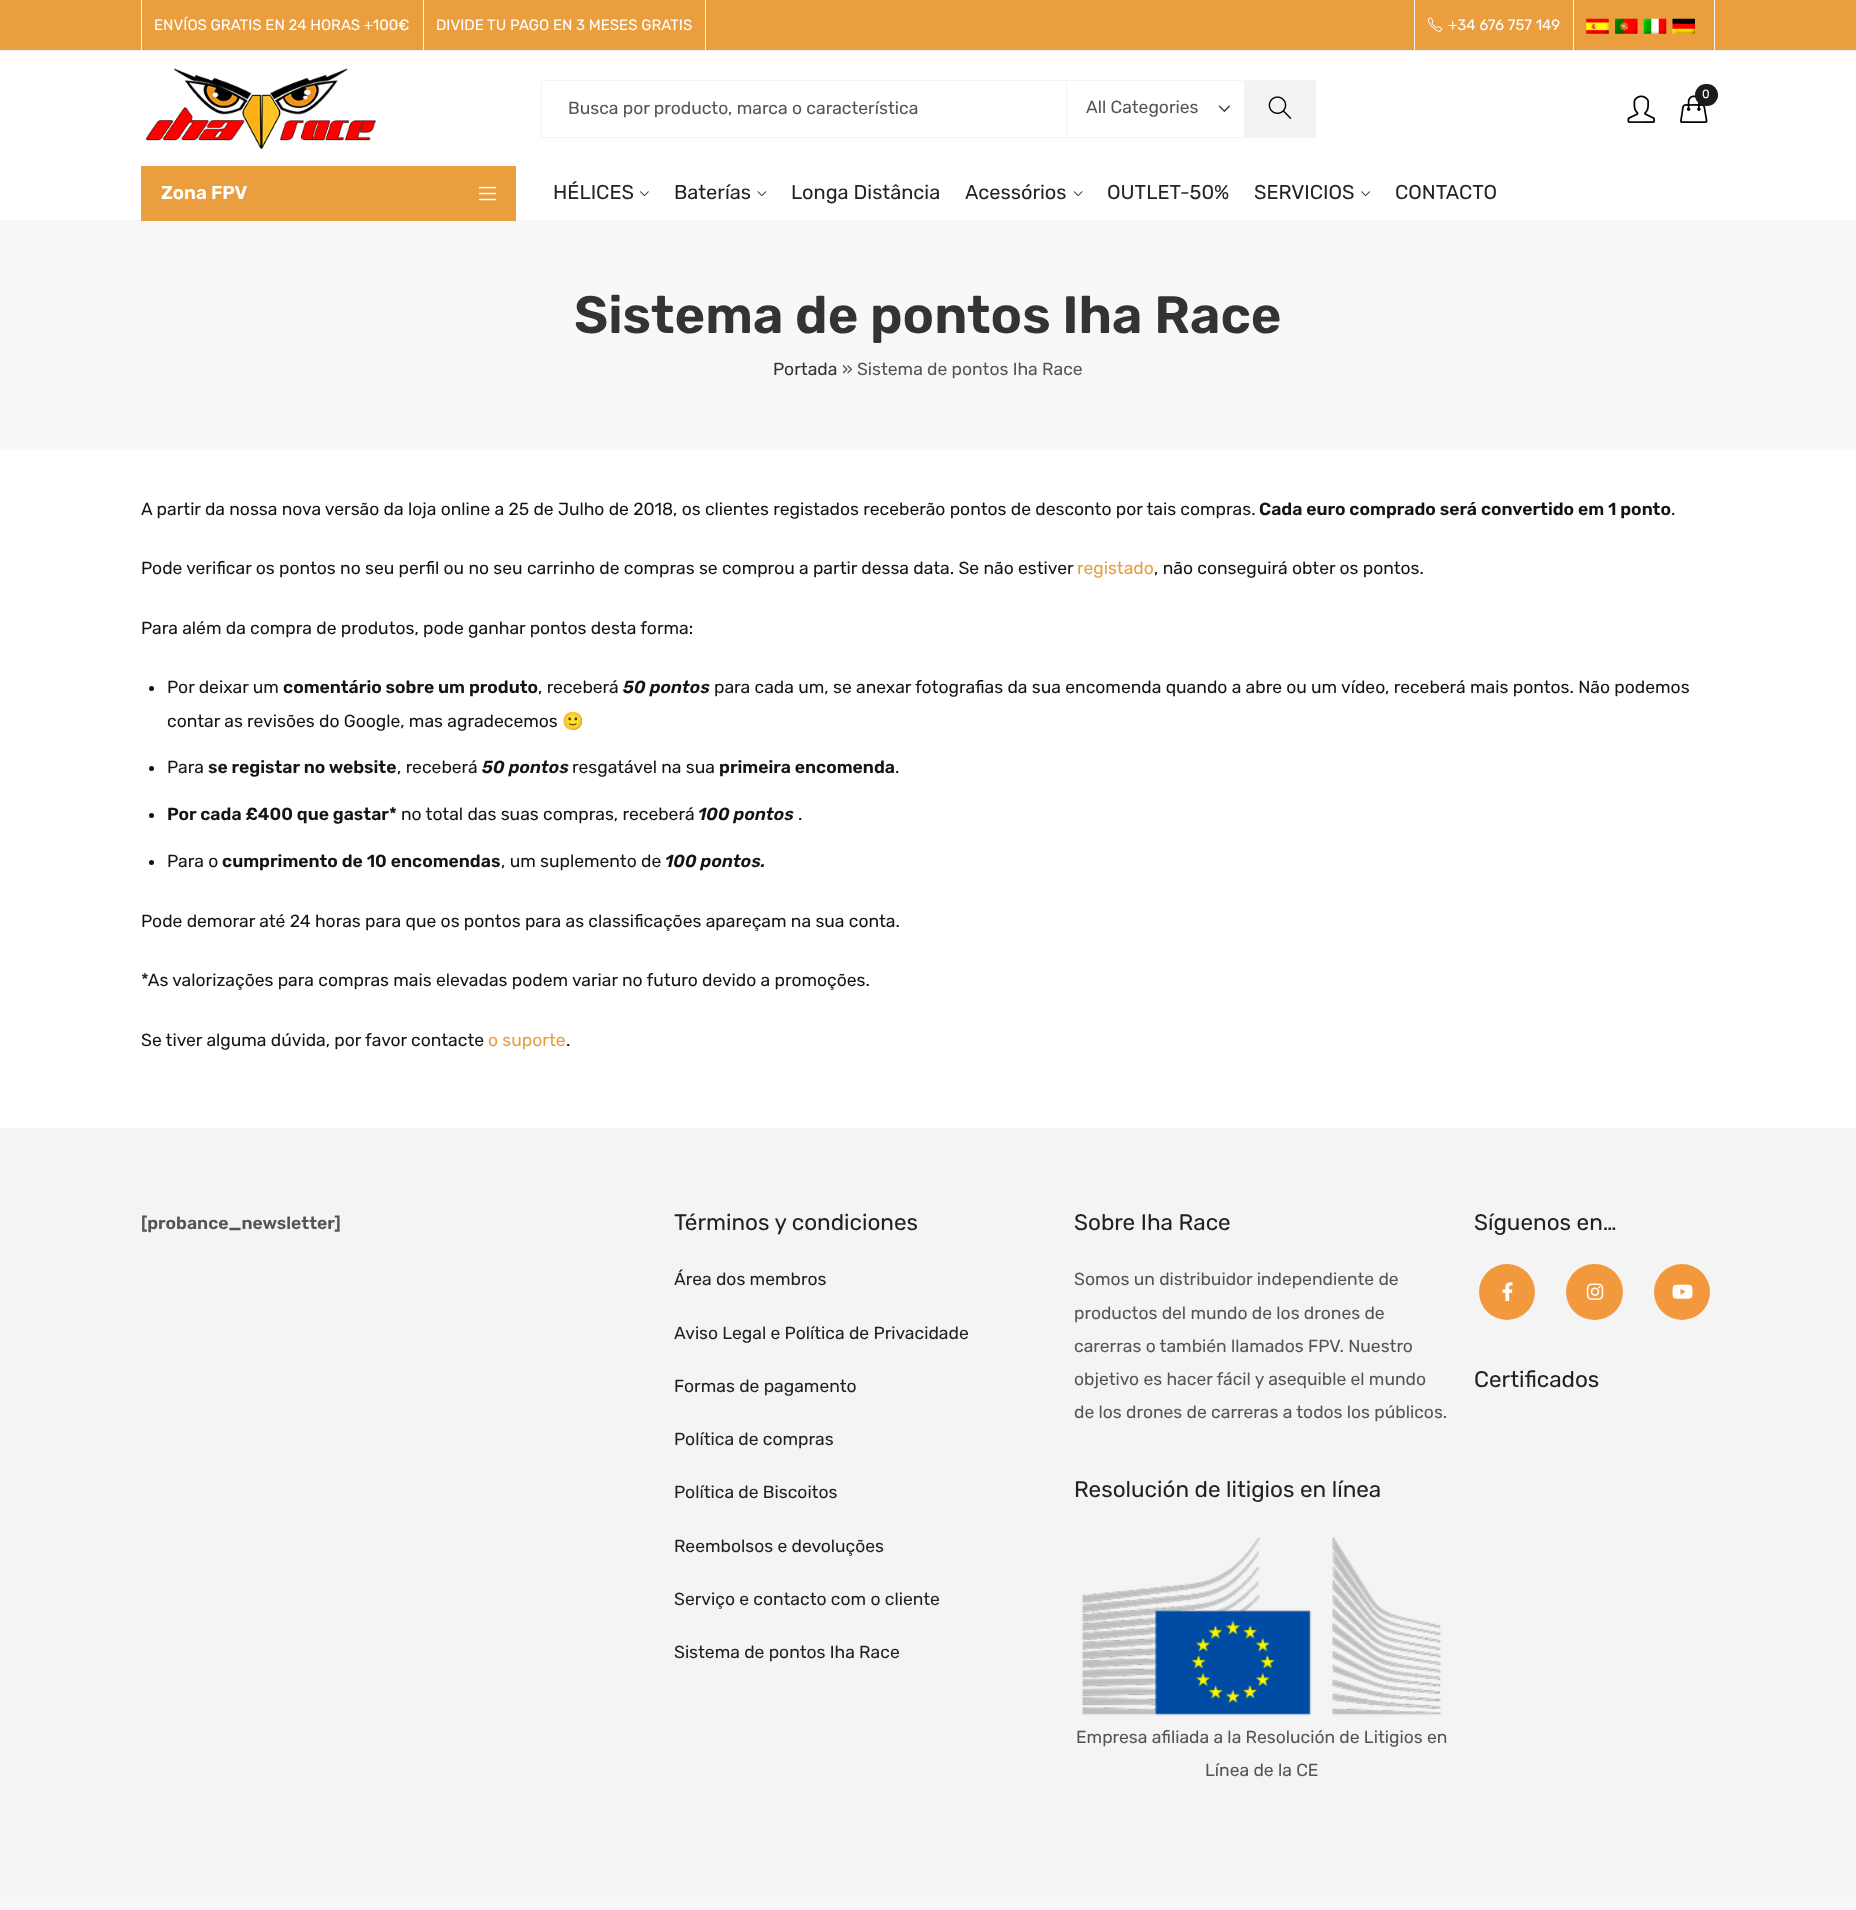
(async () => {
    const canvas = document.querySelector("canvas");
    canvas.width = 1856;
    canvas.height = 1910;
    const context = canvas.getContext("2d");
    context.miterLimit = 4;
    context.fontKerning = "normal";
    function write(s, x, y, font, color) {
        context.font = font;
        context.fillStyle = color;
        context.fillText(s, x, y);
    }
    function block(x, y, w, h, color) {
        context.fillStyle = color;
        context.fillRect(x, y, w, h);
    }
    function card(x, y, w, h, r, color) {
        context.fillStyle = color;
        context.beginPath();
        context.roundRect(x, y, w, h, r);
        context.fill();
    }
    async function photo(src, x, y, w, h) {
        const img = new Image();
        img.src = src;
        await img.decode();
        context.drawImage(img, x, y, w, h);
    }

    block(0, 0, 1856, 1910, "rgb(255, 255, 255)");
    block(0, 0, 1856, 50, "rgb(234, 158, 61)");
    block(0, 50, 1856, 1, "rgb(245, 243, 243)");
    block(141, 0, 1, 50, "rgb(245, 243, 243)");
    write("ENVÍOS GRATIS EN 24 HORAS +100€", 154, 30, "15px Rubik", "rgb(255, 255, 255)");
    block(705, 0, 1, 50, "rgb(245, 243, 243)");
    block(423, 0, 1, 50, "rgb(245, 243, 243)");
    write("DIVIDE TU PAGO EN 3 MESES GRATIS", 436, 30, "15px Rubik", "rgb(255, 255, 255)");
    block(1414, 0, 1, 50, "rgb(245, 243, 243)");
    await photo("media/1.png", 1427, 17, 16, 15);
    write("+34 676 757 149", 1448, 30, "15px Rubik", "rgb(255, 255, 255)");
    block(1714, 0, 1, 50, "rgb(245, 243, 243)");
    block(1573, 0, 1, 50, "rgb(245, 243, 243)");
    await photo("media/2.png", 1586, 18, 23, 16);
    await photo("media/3.png", 1615, 18, 23, 16);
    await photo("media/4.png", 1643, 18, 24, 16);
    await photo("media/5.png", 1672, 18, 23, 16);
    await photo("media/6.png", 146, 68, 230, 81);
    await photo("media/7.png", 1680, 95, 28, 28);
    card(1695, 84, 23, 22, 11, "rgb(28, 28, 28)");
    write("0", 1702, 98, "12px Rubik", "rgb(255, 255, 255)");
    await photo("media/8.png", 1627, 95, 28, 28);
    context.strokeStyle = "rgb(245, 243, 243)";
    context.strokeRect(541.5, 80.5, 774, 57);
    block(1066, 81, 1, 55, "rgb(245, 243, 243)");
    write("Busca por producto, marca o característica", 568, 114, "17.5px Rubik", "rgb(85, 85, 85)");
    await photo("media/9.png", 1218, 105, 12, 8);
    write("All Categories", 1086, 113, "17.5px Rubik", "rgb(85, 85, 85)");
    block(1244, 80, 72, 58, "rgb(241, 243, 244)");
    await photo("media/10.png", 1268, 96, 24, 23);
    block(0, 220, 1856, 1, "rgb(245, 243, 243)");
    block(141, 166, 375, 55, "rgb(234, 158, 61)");
    write("Zona FPV", 161, 199, "600 18.75px Rubik", "rgb(255, 255, 255)");
    await photo("media/11.png", 479, 186, 18, 15);
    write("HÉLICES", 553, 199, "20px Rubik", "rgb(33, 37, 41)");
    await photo("media/12.png", 640, 191, 9, 5);
    write("Baterías", 674, 199, "20px Rubik", "rgb(33, 37, 41)");
    await photo("media/13.png", 757, 191, 10, 5);
    write("Longa Distância", 791, 199, "20px Rubik", "rgb(33, 37, 41)");
    write("Acessórios", 965, 199, "20px Rubik", "rgb(33, 37, 41)");
    await photo("media/14.png", 1073, 191, 10, 5);
    write("OUTLET", 1107, 199, "20px Rubik", "rgb(33, 37, 41)");
    write("-50%", 1180, 199, "20px Rubik", "rgb(33, 37, 41)");
    write("SERVICIOS", 1254, 199, "20px Rubik", "rgb(33, 37, 41)");
    await photo("media/15.png", 1361, 191, 9, 5);
    write("CONTACTO", 1395, 199, "20px Rubik", "rgb(33, 37, 41)");
    block(0, 221, 1856, 229, "rgb(248, 248, 248)");
    write("Sistema de pontos Iha Race", 574, 333, "600 52.5px Rubik", "rgb(51, 51, 51)");
    write("Portada", 773, 375, "17.5px Rubik", "rgb(51, 51, 51)");
    write("» Sistema de pontos Iha Race", 842, 375, "17.5px Rubik", "rgb(85, 85, 85)");
    write("A partir da nossa nova versão da loja online a 25 de Julho de 2018, os clientes registados receberão pontos de desconto por tais compras.", 141, 515, "17.5px Rubik", "rgb(20, 20, 20)");
    write("Cada euro comprado será convertido em 1 ponto", 1259, 515, "600 17.5px Rubik", "rgb(20, 20, 20)");
    write(".", 1671, 515, "17.5px Rubik", "rgb(20, 20, 20)");
    write("Pode verificar os pontos no seu perfil ou no seu carrinho de compras se comprou a partir dessa data. Se não estiver", 141, 574, "17.5px Rubik", "rgb(20, 20, 20)");
    write("registado", 1077, 574, "17.5px Rubik", "rgb(234, 158, 61)");
    write(", não conseguirá obter os pontos.", 1154, 574, "17.5px Rubik", "rgb(20, 20, 20)");
    write("Para além da compra de produtos, pode ganhar pontos desta forma:", 141, 634, "17.5px Rubik", "rgb(20, 20, 20)");
    context.beginPath();
    context.arc(151.5, 688.5, 2.5, 0, Math.PI * 2);
    context.fill();
    write("Por deixar um", 167, 693, "17.5px Rubik", "rgb(20, 20, 20)");
    write("comentário sobre um produto", 283, 693, "600 17.5px Rubik", "rgb(20, 20, 20)");
    write(", receberá", 538, 693, "17.5px Rubik", "rgb(20, 20, 20)");
    write("50 pontos", 623, 693, "italic 600 17.5px Rubik", "rgb(20, 20, 20)");
    write("para cada um, se anexar fotografias da sua encomenda quando a abre ou um vídeo, receberá mais pontos. Não podemos", 714, 693, "17.5px Rubik", "rgb(20, 20, 20)");
    write("contar as revisões do Google, mas agradecemos", 167, 727, "17.5px Rubik", "rgb(20, 20, 20)");
    write("🙂", 562, 727, "17.5px Noto Color Emoji", "rgb(20, 20, 20)");
    context.beginPath();
    context.arc(151.5, 768.5, 2.5, 0, Math.PI * 2);
    context.fill();
    write("Para", 167, 773, "17.5px Rubik", "rgb(20, 20, 20)");
    write("se registar no website", 208, 773, "600 17.5px Rubik", "rgb(20, 20, 20)");
    write(", receberá", 397, 773, "17.5px Rubik", "rgb(20, 20, 20)");
    write("50 pontos", 482, 773, "italic 600 17.5px Rubik", "rgb(20, 20, 20)");
    write("resgatável na sua", 572, 773, "17.5px Rubik", "rgb(20, 20, 20)");
    write("primeira encomenda", 719, 773, "600 17.5px Rubik", "rgb(20, 20, 20)");
    write(".", 895, 773, "17.5px Rubik", "rgb(20, 20, 20)");
    context.beginPath();
    context.arc(151.5, 815.5, 2.5, 0, Math.PI * 2);
    context.fill();
    write("Por cada £400 que gastar*", 167, 820, "600 17.5px Rubik", "rgb(20, 20, 20)");
    write("no total das suas compras, receberá", 401, 820, "17.5px Rubik", "rgb(20, 20, 20)");
    write("100 pontos", 698, 820, "italic 600 17.5px Rubik", "rgb(20, 20, 20)");
    write(".", 798, 820, "17.5px Rubik", "rgb(20, 20, 20)");
    context.beginPath();
    context.arc(151.5, 862.5, 2.5, 0, Math.PI * 2);
    context.fill();
    write("Para o", 167, 867, "17.5px Rubik", "rgb(20, 20, 20)");
    write("cumprimento de 10 encomendas", 222, 867, "600 17.5px Rubik", "rgb(20, 20, 20)");
    write(", um suplemento de", 501, 867, "17.5px Rubik", "rgb(20, 20, 20)");
    write("100 pontos.", 665, 867, "italic 600 17.5px Rubik", "rgb(20, 20, 20)");
    write("Pode demorar até 24 horas para que os pontos para as classificações apareçam na sua conta.", 141, 927, "17.5px Rubik", "rgb(20, 20, 20)");
    write("*As valorizações para compras mais elevadas podem variar no futuro devido a promoções.", 141, 986, "17.5px Rubik", "rgb(20, 20, 20)");
    write("Se tiver alguma dúvida, por favor contacte", 141, 1046, "17.5px Rubik", "rgb(20, 20, 20)");
    write("o suporte", 488, 1046, "17.5px Rubik", "rgb(234, 158, 61)");
    write(".", 566, 1046, "17.5px Rubik", "rgb(20, 20, 20)");
    block(0, 1128, 1856, 767, "rgb(244, 244, 244)");
    write("[probance_newsletter]", 141, 1229, "600 17.5px Rubik", "rgb(85, 85, 85)");
    write("Términos y condiciones", 674, 1230, "22.5px Rubik", "rgb(33, 33, 33)");
    write("Área dos membros", 674, 1285, "17.5px Rubik", "rgb(33, 33, 33)");
    write("Aviso Legal e Política de Privacidade", 674, 1339, "17.5px Rubik", "rgb(33, 33, 33)");
    write("Formas de pagamento", 674, 1392, "17.5px Rubik", "rgb(33, 33, 33)");
    write("Política de compras", 674, 1445, "17.5px Rubik", "rgb(33, 33, 33)");
    write("Política de Biscoitos", 674, 1498, "17.5px Rubik", "rgb(33, 33, 33)");
    write("Reembolsos e devoluções", 674, 1552, "17.5px Rubik", "rgb(33, 33, 33)");
    write("Serviço e contacto com o cliente", 674, 1605, "17.5px Rubik", "rgb(33, 33, 33)");
    write("Sistema de pontos Iha Race", 674, 1658, "17.5px Rubik", "rgb(33, 33, 33)");
    write("Sobre Iha Race", 1074, 1230, "22.5px Rubik", "rgb(33, 33, 33)");
    write("Somos un distribuidor independiente de", 1074, 1285, "17.5px Rubik", "rgb(85, 85, 85)");
    write("productos del mundo de los drones de", 1074, 1319, "17.5px Rubik", "rgb(85, 85, 85)");
    write("carerras o también llamados FPV. Nuestro", 1074, 1352, "17.5px Rubik", "rgb(85, 85, 85)");
    write("objetivo es hacer fácil y asequible el mundo", 1074, 1385, "17.5px Rubik", "rgb(85, 85, 85)");
    write("de los drones de carreras a todos los públicos.", 1074, 1418, "17.5px Rubik", "rgb(85, 85, 85)");
    write("Resolución de litigios en línea", 1074, 1497, "22.5px Rubik", "rgb(33, 33, 33)");
    await photo("media/16.png", 1082, 1537, 360, 179);
    write("Empresa afiliada a la Resolución de Litigios en", 1076, 1743, "17.5px Rubik", "rgb(85, 85, 85)");
    write("Línea de la CE", 1205, 1776, "17.5px Rubik", "rgb(85, 85, 85)");
    write("Síguenos en…", 1474, 1230, "22.5px Rubik", "rgb(33, 33, 33)");
    context.fillStyle = "rgb(242, 153, 62)";
    context.beginPath();
    context.arc(1507, 1292, 28, 0, Math.PI * 2);
    context.fill();
    await photo("media/17.png", 1502, 1282, 11, 20);
    card(1566, 1264, 57, 56, 28, "rgb(242, 153, 62)");
    await photo("media/18.png", 1586, 1283, 18, 17);
    context.beginPath();
    context.arc(1682, 1292, 28, 0, Math.PI * 2);
    context.fill();
    await photo("media/19.png", 1672, 1284, 21, 15);
    write("Certificados", 1474, 1387, "22.5px Rubik", "rgb(33, 33, 33)");
    block(0, 1896, 1856, 14, "rgb(248, 248, 248)");
    block(0, 1895, 1856, 1, "rgb(245, 243, 243)");
})();
